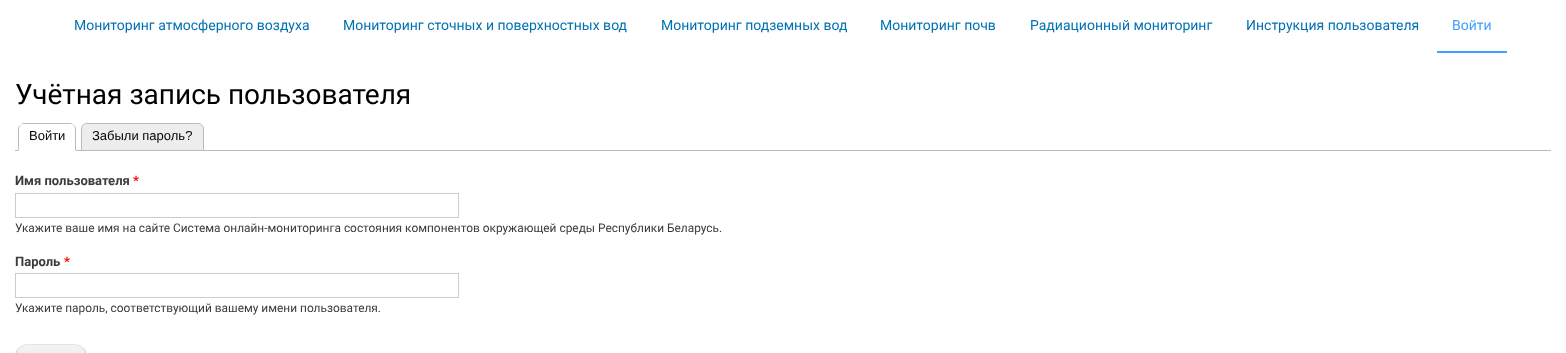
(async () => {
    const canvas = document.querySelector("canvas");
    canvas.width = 1566;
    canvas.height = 353;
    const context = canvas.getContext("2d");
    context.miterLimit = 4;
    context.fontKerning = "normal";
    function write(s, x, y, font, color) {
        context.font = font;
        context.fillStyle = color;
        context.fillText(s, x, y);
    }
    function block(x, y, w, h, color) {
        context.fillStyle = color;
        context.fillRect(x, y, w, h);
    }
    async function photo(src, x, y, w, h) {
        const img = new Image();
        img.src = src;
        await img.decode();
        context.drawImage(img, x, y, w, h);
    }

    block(0, 0, 1566, 353, "rgb(255, 255, 255)");
    write("Мониторинг атмосферного воздуха", 74, 30, "14px Roboto", "rgb(0, 113, 179)");
    write("Мониторинг сточных и поверхностных вод", 343, 30, "14px Roboto", "rgb(0, 113, 179)");
    write("Мониторинг подземных вод", 661, 30, "14px Roboto", "rgb(0, 113, 179)");
    write("Мониторинг почв", 880, 30, "14px Roboto", "rgb(0, 113, 179)");
    write("Радиационный мониторинг", 1030, 30, "14px Roboto", "rgb(0, 113, 179)");
    write("Инструкция пользователя", 1246, 30, "14px Roboto", "rgb(0, 113, 179)");
    block(1437, 51, 70, 2, "rgb(64, 158, 255)");
    write("Войти", 1452, 30, "14px Roboto", "rgb(64, 158, 255)");
    write("Учётная запись пользователя", 15, 104, "28px Roboto", "rgb(0, 0, 0)");
    block(15, 150, 1536, 1, "rgb(187, 187, 187)");
    context.fillStyle = "rgb(255, 255, 255)";
    context.beginPath();
    context.roundRect(18, 123, 58, 28, [6, 6, 0, 0]);
    context.fill();
    context.fillStyle = "rgb(187, 187, 187)";
    context.beginPath();
    context.moveTo(24, 123);
    context.bezierCurveTo(22, 123, 21, 124, 20, 125);
    context.bezierCurveTo(21, 124, 22, 124, 24, 124);
    context.lineTo(70, 124);
    context.bezierCurveTo(72, 124, 73, 124, 74, 125);
    context.bezierCurveTo(73, 124, 72, 123, 70, 123);
    context.closePath();
    context.moveTo(76, 151);
    context.lineTo(76, 129);
    context.bezierCurveTo(76, 127.5, 75, 126, 74, 125);
    context.lineTo(73.5, 125.5);
    context.bezierCurveTo(74.5, 126, 75, 127.5, 75, 129);
    context.lineTo(75, 150);
    context.closePath();
    context.fill();
    context.fillStyle = "rgb(255, 255, 255)";
    context.beginPath();
    context.moveTo(76, 151);
    context.lineTo(75, 150);
    context.lineTo(19, 150);
    context.lineTo(18, 151);
    context.closePath();
    context.fill();
    context.fillStyle = "rgb(187, 187, 187)";
    context.beginPath();
    context.moveTo(18, 151);
    context.lineTo(19, 150);
    context.lineTo(19, 129);
    context.bezierCurveTo(19, 127.5, 19.5, 126, 20.5, 125.5);
    context.lineTo(20, 125);
    context.bezierCurveTo(19, 126, 18, 127.5, 18, 129);
    context.closePath();
    context.fill();
    write("Войти", 29, 140, "13px Liberation Sans", "rgb(0, 0, 0)");
    context.fillStyle = "rgb(237, 237, 237)";
    context.beginPath();
    context.roundRect(81, 123, 123, 27, [6, 6, 0, 0]);
    context.fill();
    context.fillStyle = "rgb(187, 187, 187)";
    context.beginPath();
    context.moveTo(87, 123);
    context.lineTo(198, 123);
    context.bezierCurveTo(201, 123, 204, 126, 204, 129);
    context.lineTo(204, 150);
    context.lineTo(81, 150);
    context.lineTo(81, 129);
    context.bezierCurveTo(81, 126, 84, 123, 87, 123);
    context.closePath();
    context.moveTo(87, 124);
    context.lineTo(198, 124);
    context.bezierCurveTo(201, 124, 203, 126, 203, 129);
    context.lineTo(203, 150);
    context.lineTo(82, 150);
    context.lineTo(82, 129);
    context.bezierCurveTo(82, 126, 84, 124, 87, 124);
    context.closePath();
    context.fill("evenodd");
    write("Забыли пароль?", 92, 140, "13px Liberation Sans", "rgb(0, 0, 0)");
    write("Имя пользователя", 15, 185, "bold 13px Roboto", "rgb(59, 59, 59)");
    write("*", 133, 185, "bold 13px Roboto", "rgb(255, 0, 0)");
    context.strokeStyle = "rgb(204, 204, 204)";
    context.strokeRect(15.5, 193.5, 443, 24);
    write("Укажите ваше имя на сайте Система онлайн-мониторинга состояния компонентов окружающей среды Республики Беларусь.", 15, 232, "11.9px Roboto", "rgb(59, 59, 59)");
    write("Пароль", 15, 266, "bold 13px Roboto", "rgb(59, 59, 59)");
    write("*", 64, 266, "bold 13px Roboto", "rgb(255, 0, 0)");
    context.strokeRect(15.5, 273.5, 443, 24);
    write("Укажите пароль, соответствующий вашему имени пользователя.", 15, 312, "11.9px Roboto", "rgb(59, 59, 59)");
    await photo("media/1.png", 15, 345, 72, 8);
    context.beginPath();
    context.moveTo(19, 348);
    context.bezierCurveTo(21.5, 346, 24.5, 344.5, 27.5, 344.5);
    context.lineTo(74.5, 344.5);
    context.bezierCurveTo(77.5, 344.5, 80.5, 346, 83, 348);
    context.strokeStyle = "rgb(228, 228, 228)";
    context.stroke();
    context.beginPath();
    context.moveTo(83, 348);
    context.bezierCurveTo(87.5, 352.5, 87.5, 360.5, 83, 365);
    context.strokeStyle = "rgb(210, 210, 210)";
    context.stroke();
    context.beginPath();
    context.moveTo(19, 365);
    context.bezierCurveTo(14.5, 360.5, 14.5, 352.5, 19, 348);
    context.stroke();
})();
